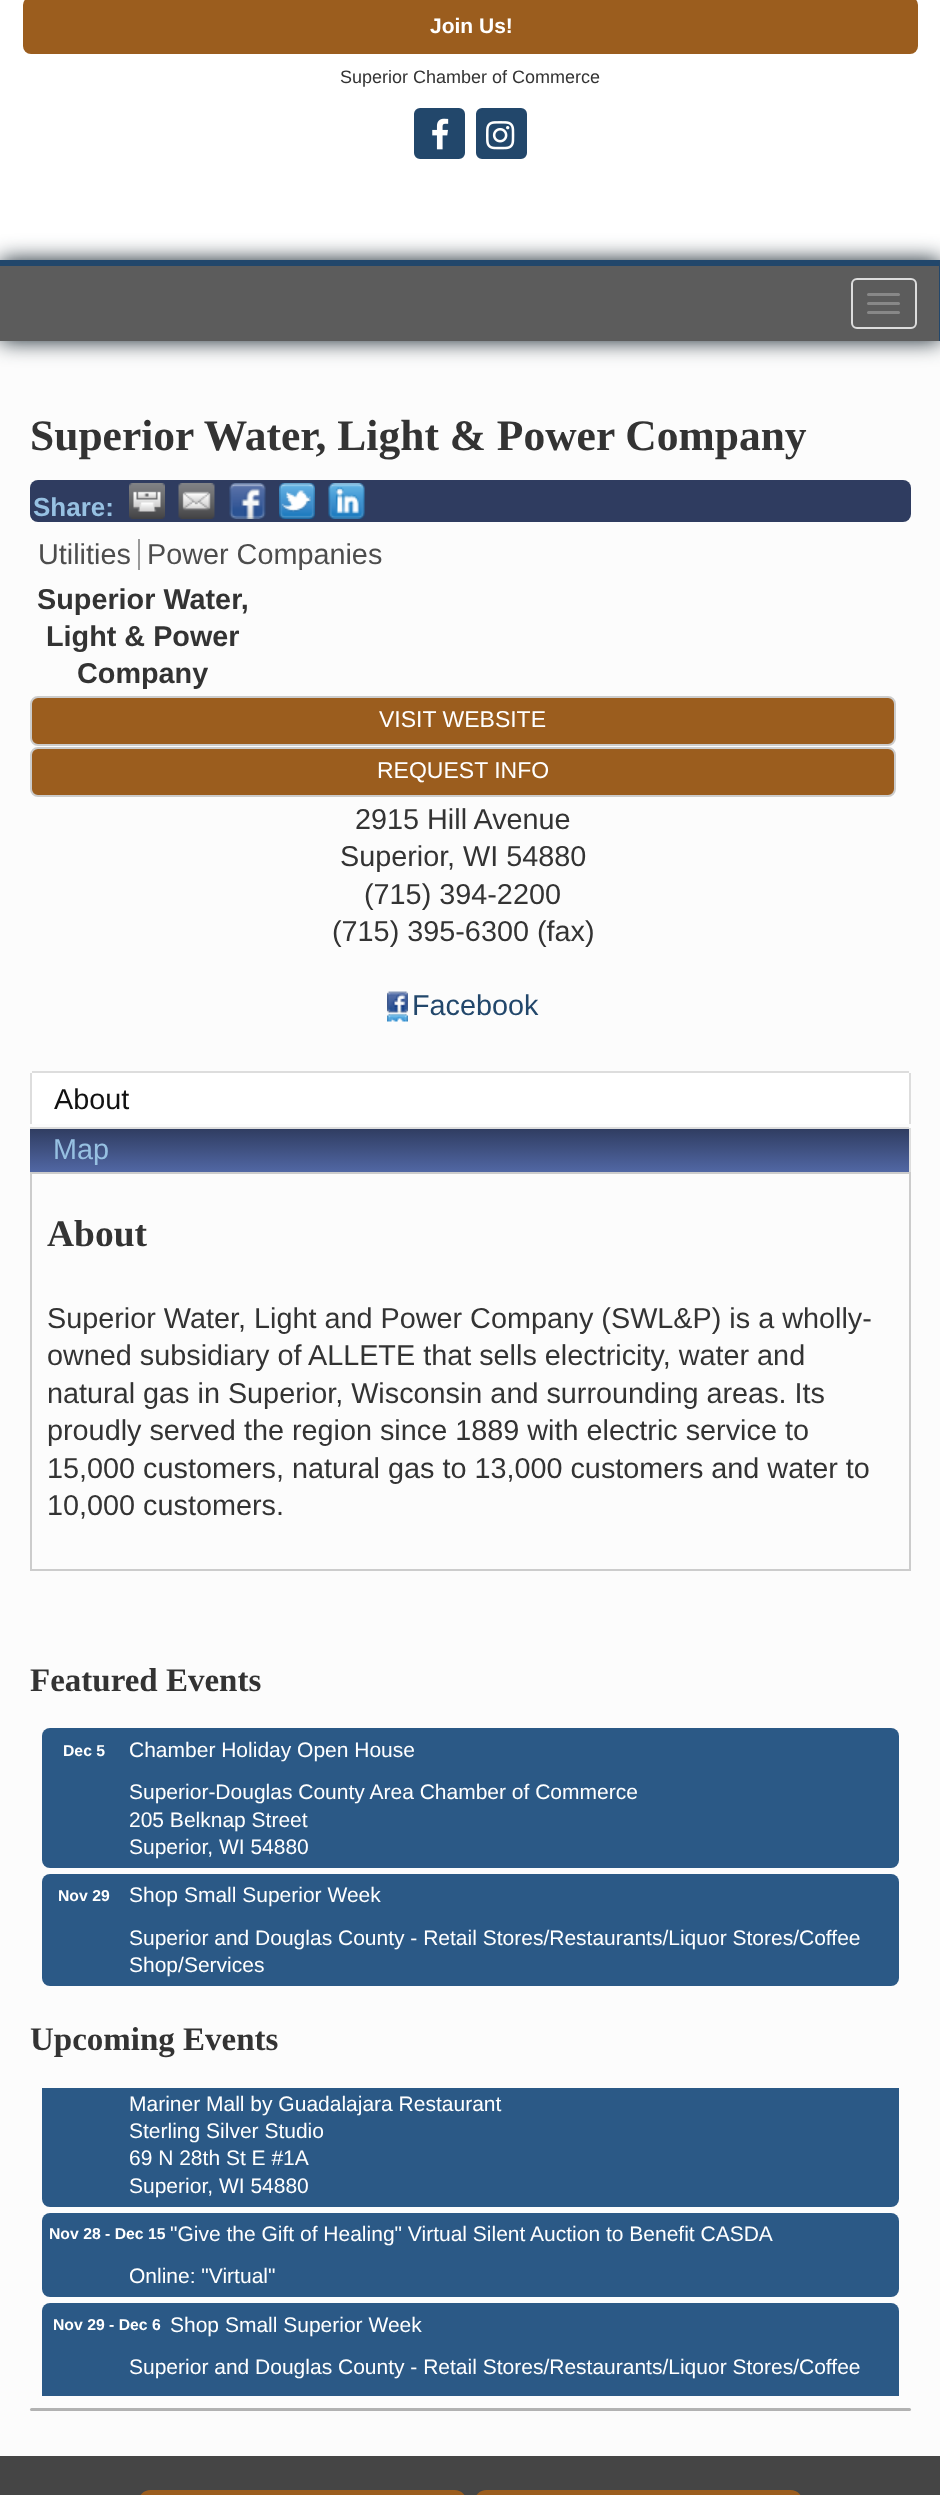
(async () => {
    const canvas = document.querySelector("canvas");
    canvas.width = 940;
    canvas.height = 2495;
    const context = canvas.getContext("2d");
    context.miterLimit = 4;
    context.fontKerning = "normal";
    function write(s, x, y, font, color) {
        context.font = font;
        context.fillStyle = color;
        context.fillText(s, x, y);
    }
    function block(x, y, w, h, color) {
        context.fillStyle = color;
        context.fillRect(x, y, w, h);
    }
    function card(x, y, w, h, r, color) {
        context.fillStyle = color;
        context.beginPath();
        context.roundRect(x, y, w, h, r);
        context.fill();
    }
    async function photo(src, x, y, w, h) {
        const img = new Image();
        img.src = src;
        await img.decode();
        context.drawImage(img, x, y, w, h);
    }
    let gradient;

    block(0, 0, 940, 2495, "rgb(255, 255, 255)");
    card(23, -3, 895, 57, 8, "rgb(155, 93, 30)");
    write("Join Us!", 430, 33, "bold 21px Liberation Sans", "rgb(255, 255, 255)");
    write("Superior Chamber of Commerce", 340, 83, "18px Liberation Sans", "rgb(51, 51, 51)");
    context.fillStyle = "rgb(34, 71, 107)";
    context.beginPath();
    context.roundRect(415, 109, 49, 49, 5);
    context.fill();
    context.strokeStyle = "rgb(34, 71, 107)";
    context.lineWidth = 2;
    context.stroke();
    await photo("media/1.png", 432, 118, 17, 32);
    context.beginPath();
    context.roundRect(477, 109, 49, 49, 5);
    context.fill();
    context.stroke();
    await photo("media/2.png", 486, 121, 29, 29);
    block(0, 341, 940, 2115, "rgb(252, 252, 252)");
    context.save();
    context.beginPath();
    context.moveTo(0, 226);
    context.lineTo(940, 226);
    context.lineTo(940, 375);
    context.lineTo(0, 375);
    context.closePath();
    context.moveTo(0, 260);
    context.lineTo(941, 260);
    context.lineTo(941, 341);
    context.lineTo(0, 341);
    context.closePath();
    context.clip("evenodd");
    context.fillStyle = "rgb(19, 33, 43)";
    context.filter = "blur(11px)";
    context.beginPath();
    context.rect(0, 260, 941, 81);
    context.fill();
    context.filter = "none";
    context.restore();
    block(0, 266, 939, 75, "rgba(51, 51, 51, 0.8)");
    block(0, 260, 940, 6, "rgb(34, 71, 107)");
    block(939, 260, 1, 81, "rgb(34, 71, 107)");
    context.beginPath();
    context.roundRect(852, 279, 64, 49, 5);
    context.strokeStyle = "rgb(221, 221, 221)";
    context.stroke();
    card(867, 293, 33, 3, 1.5, "rgb(136, 136, 136)");
    card(867, 302, 33, 3, 1.5, "rgb(136, 136, 136)");
    card(867, 311, 33, 3, 1.5, "rgb(136, 136, 136)");
    write("Superior Water, Light & Power Company", 30, 450, "bold 43.5px Liberation Serif", "rgb(51, 51, 51)");
    card(30, 480, 881, 42, 8, "rgb(47, 60, 96)");
    write("Share:", 33, 516, "bold 26px Liberation Sans", "rgb(151, 193, 226)");
    await photo("media/3.png", 129, 483, 36, 36);
    await photo("media/4.png", 178, 483, 37, 36);
    await photo("media/5.png", 229, 483, 37, 36);
    await photo("media/6.png", 279, 483, 36, 36);
    await photo("media/7.png", 328, 483, 37, 36);
    write("Utilities", 38, 564, "28.8px Liberation Sans", "rgb(77, 77, 77)");
    write("Power Companies", 147, 564, "28.8px Liberation Sans", "rgb(77, 77, 77)");
    block(138, 539, 2, 31, "rgb(153, 153, 153)");
    write("Superior Water,", 37, 609, "bold 28.8px Liberation Sans", "rgb(51, 51, 51)");
    write("Light & Power", 46, 646, "bold 28.8px Liberation Sans", "rgb(51, 51, 51)");
    write("Company", 77, 683, "bold 28.8px Liberation Sans", "rgb(51, 51, 51)");
    context.fillStyle = "rgb(155, 93, 30)";
    context.beginPath();
    context.roundRect(31, 697, 864, 48, 7);
    context.fill();
    context.strokeStyle = "rgb(204, 204, 204)";
    context.stroke();
    write("VISIT WEBSITE", 379, 727, "23px Liberation Sans", "rgb(255, 255, 255)");
    context.fillStyle = "rgb(155, 93, 30)";
    context.beginPath();
    context.roundRect(31, 748, 864, 48, 7);
    context.fill();
    context.stroke();
    write("REQUEST INFO", 377, 778, "23px Liberation Sans", "rgb(255, 255, 255)");
    write("2915 Hill Avenue", 355, 829, "28.8px Liberation Sans", "rgb(51, 51, 51)");
    write("Superior", 340, 866, "28.8px Liberation Sans", "rgb(51, 51, 51)");
    write(", WI 54880", 447, 866, "28.8px Liberation Sans", "rgb(51, 51, 51)");
    write("(715) 394-2200", 364, 904, "28.8px Liberation Sans", "rgb(51, 51, 51)");
    write("(715) 395-6300 (fax)", 332, 941, "28.8px Liberation Sans", "rgb(51, 51, 51)");
    await photo("media/8.png", 387, 991, 21, 31);
    write("Facebook", 412, 1015, "28.8px Liberation Sans", "rgb(34, 71, 107)");
    context.fillStyle = "rgb(255, 255, 255)";
    context.beginPath();
    context.roundRect(32, 1073, 877, 51, [1.5, 1.5, 0, 0]);
    context.fill();
    block(32, 1071, 877, 2, "rgb(221, 221, 221)");
    block(909, 1073, 2, 51, "rgb(221, 221, 221)");
    block(30, 1073, 2, 51, "rgb(221, 221, 221)");
    write("About", 54, 1109, "28.8px Liberation Sans", "rgb(17, 17, 17)");
    gradient = context.createLinearGradient(470, 1128, 470, 1172);
    gradient.addColorStop(0, "rgb(47, 60, 96)");
    gradient.addColorStop(1, "rgb(81, 103, 164)");
    context.fillStyle = gradient;
    context.fillRect(30, 1129, 879, 43);
    block(30, 1127, 879, 2, "rgb(221, 221, 221)");
    block(909, 1128, 2, 44, "rgb(221, 221, 221)");
    write("Map", 53, 1159, "28.8px Liberation Sans", "rgb(151, 193, 226)");
    context.strokeRect(31, 1173, 879, 397);
    write("About", 47, 1246, "bold 37.5px Liberation Serif", "rgb(51, 51, 51)");
    write("Superior Water, Light and Power Company (SWL&P) is a wholly-", 47, 1328, "28.8px Liberation Sans", "rgb(51, 51, 51)");
    write("owned subsidiary of ALLETE that sells electricity, water and", 47, 1365, "28.8px Liberation Sans", "rgb(51, 51, 51)");
    write("natural gas in Superior, Wisconsin and surrounding areas. Its", 47, 1403, "28.8px Liberation Sans", "rgb(51, 51, 51)");
    write("proudly served the region since 1889 with electric service to", 47, 1440, "28.8px Liberation Sans", "rgb(51, 51, 51)");
    write("15,000 customers, natural gas to 13,000 customers and water to", 47, 1478, "28.8px Liberation Sans", "rgb(51, 51, 51)");
    write("10,000 customers.", 47, 1515, "28.8px Liberation Sans", "rgb(51, 51, 51)");
    write("Featured Events", 30, 1691, "bold 33px Liberation Serif", "rgb(51, 51, 51)");
    card(42, 1728, 857, 140, 8, "rgb(43, 89, 134)");
    write("Dec 5", 63, 1756, "bold 15.75px Liberation Sans", "rgb(255, 255, 255)");
    write("Chamber Holiday Open House", 129, 1757, "21px Liberation Sans", "rgb(255, 255, 255)");
    write("Superior-Douglas County Area Chamber of Commerce", 129, 1799, "21px Liberation Sans", "rgb(255, 255, 255)");
    write("205 Belknap Street", 129, 1827, "21px Liberation Sans", "rgb(255, 255, 255)");
    write("Superior, WI 54880", 129, 1854, "21px Liberation Sans", "rgb(255, 255, 255)");
    card(42, 1874, 857, 112, 8, "rgb(43, 89, 134)");
    write("Nov 29", 58, 1901, "bold 15.75px Liberation Sans", "rgb(255, 255, 255)");
    write("Shop Small Superior Week", 129, 1902, "21px Liberation Sans", "rgb(255, 255, 255)");
    write("Superior and Douglas County - Retail Stores/Restaurants/Liquor Stores/Coffee", 129, 1945, "21px Liberation Sans", "rgb(255, 255, 255)");
    write("Shop/Services", 129, 1972, "21px Liberation Sans", "rgb(255, 255, 255)");
    write("Upcoming Events", 30, 2050, "bold 33px Liberation Serif", "rgb(51, 51, 51)");
    context.fillStyle = "rgb(43, 89, 134)";
    context.beginPath();
    context.roundRect(42, 2088, 857, 119, [0, 0, 8, 8]);
    context.fill();
    write("Mariner Mall by Guadalajara Restaurant", 129, 2111, "21px Liberation Sans", "rgb(255, 255, 255)");
    write("Sterling Silver Studio", 129, 2138, "21px Liberation Sans", "rgb(255, 255, 255)");
    write("69 N 28th St E #1A", 129, 2165, "21px Liberation Sans", "rgb(255, 255, 255)");
    write("Superior, WI 54880", 129, 2193, "21px Liberation Sans", "rgb(255, 255, 255)");
    card(42, 2213, 857, 84, 8, "rgb(43, 89, 134)");
    write("Nov 28 - Dec 15", 49, 2239, "bold 15.75px Liberation Sans", "rgb(255, 255, 255)");
    write("\"Give the Gift of Healing\" Virtual Silent Auction to Benefit CASDA", 170, 2241, "21px Liberation Sans", "rgb(255, 255, 255)");
    write("Online: \"Virtual\"", 129, 2283, "21px Liberation Sans", "rgb(255, 255, 255)");
    context.fillStyle = "rgb(43, 89, 134)";
    context.beginPath();
    context.roundRect(42, 2303, 857, 93, [8, 8, 0, 0]);
    context.fill();
    write("Nov 29 - Dec 6", 53, 2330, "bold 15.75px Liberation Sans", "rgb(255, 255, 255)");
    write("Shop Small Superior Week", 170, 2332, "21px Liberation Sans", "rgb(255, 255, 255)");
    write("Superior and Douglas County - Retail Stores/Restaurants/Liquor Stores/Coffee", 129, 2374, "21px Liberation Sans", "rgb(255, 255, 255)");
    card(30, 2408, 881, 3, 1.5, "rgb(178, 178, 178)");
    block(0, 2456, 940, 39, "rgb(69, 69, 69)");
    context.beginPath();
    context.roundRect(140.5, 2492.5, 324, 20, 12.5);
    context.strokeStyle = "rgb(155, 93, 30)";
    context.lineWidth = 5;
    context.stroke();
    context.beginPath();
    context.roundRect(476.5, 2492.5, 324, 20, 12.5);
    context.stroke();
})();
